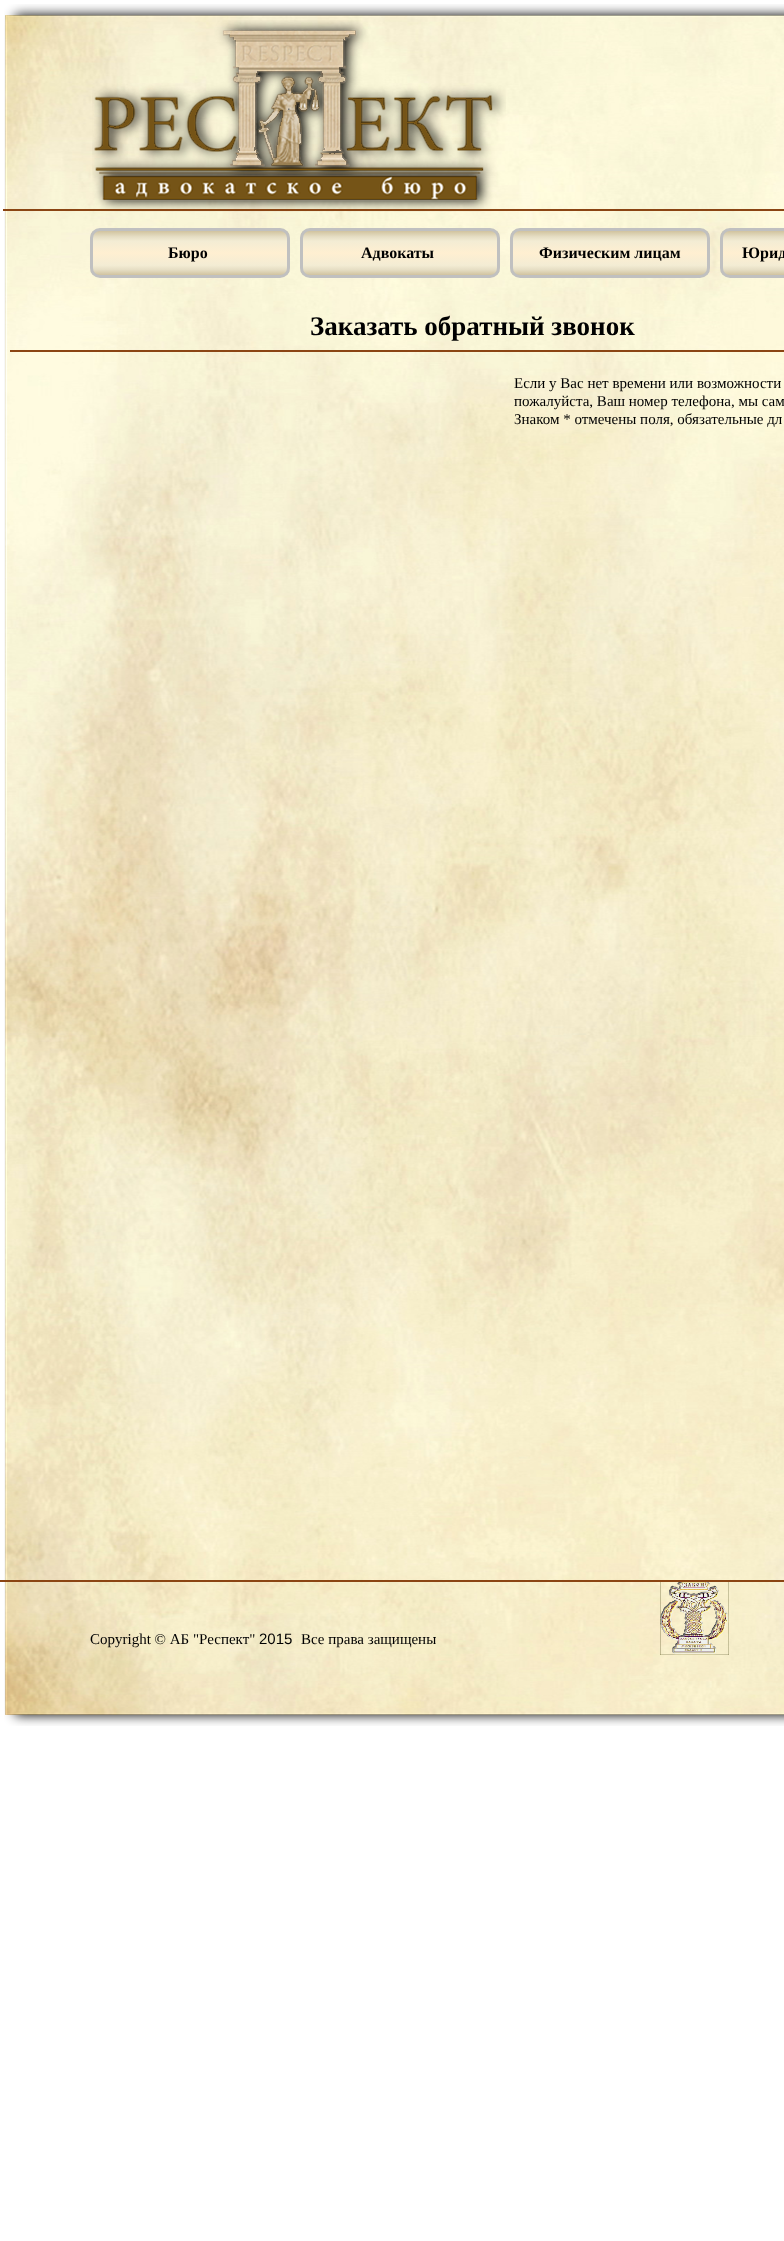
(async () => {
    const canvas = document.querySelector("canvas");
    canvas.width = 784;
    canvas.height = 2241;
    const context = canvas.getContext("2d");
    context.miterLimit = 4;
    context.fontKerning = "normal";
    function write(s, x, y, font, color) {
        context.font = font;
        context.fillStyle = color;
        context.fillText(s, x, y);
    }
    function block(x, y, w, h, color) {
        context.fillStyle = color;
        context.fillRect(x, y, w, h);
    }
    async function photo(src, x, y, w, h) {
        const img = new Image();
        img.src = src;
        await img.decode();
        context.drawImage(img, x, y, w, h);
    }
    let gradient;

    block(0, 0, 784, 2241, "rgb(255, 255, 255)");
    await photo("media/1.png", 4, 4, 780, 1722);
    await photo("media/2.png", 92, 20, 414, 192);
    write(".", 287, 110, "13px Liberation Sans", "rgb(102, 102, 102)");
    block(3, 209, 781, 2, "rgb(139, 69, 19)");
    context.save();
    context.beginPath();
    context.roundRect(90, 228, 200, 50, 10);
    context.clip();
    gradient = context.createLinearGradient(190, 275, 190, 231);
    gradient.addColorStop(0, "rgb(209, 195, 159)");
    gradient.addColorStop(0.12, "rgb(230, 222, 196)");
    gradient.addColorStop(0.22, "rgb(243, 236, 212)");
    gradient.addColorStop(0.5, "rgb(255, 239, 209)");
    gradient.addColorStop(0.77, "rgb(243, 236, 212)");
    gradient.addColorStop(0.87, "rgb(230, 222, 196)");
    gradient.addColorStop(1, "rgb(209, 195, 159)");
    context.fillStyle = gradient;
    context.fillRect(90, 231, 200, 44);
    context.restore();
    context.beginPath();
    context.roundRect(91.5, 229.5, 197, 47, 8.5);
    context.strokeStyle = "rgb(192, 192, 192)";
    context.lineWidth = 3;
    context.stroke();
    write("Бюро", 168, 258, "bold 16px Liberation Serif", "rgb(0, 0, 0)");
    context.save();
    context.beginPath();
    context.roundRect(300, 228, 200, 50, 10);
    context.clip();
    gradient = context.createLinearGradient(400, 275, 400, 231);
    gradient.addColorStop(0, "rgb(209, 195, 159)");
    gradient.addColorStop(0.12, "rgb(230, 222, 196)");
    gradient.addColorStop(0.22, "rgb(243, 236, 212)");
    gradient.addColorStop(0.5, "rgb(255, 239, 209)");
    gradient.addColorStop(0.77, "rgb(243, 236, 212)");
    gradient.addColorStop(0.87, "rgb(230, 222, 196)");
    gradient.addColorStop(1, "rgb(209, 195, 159)");
    context.fillStyle = gradient;
    context.fillRect(300, 231, 200, 44);
    context.restore();
    context.beginPath();
    context.roundRect(301.5, 229.5, 197, 47, 8.5);
    context.stroke();
    write("Адвокаты", 361, 258, "bold 16px Liberation Serif", "rgb(0, 0, 0)");
    context.save();
    context.beginPath();
    context.roundRect(510, 228, 200, 50, 10);
    context.clip();
    gradient = context.createLinearGradient(610, 275, 610, 231);
    gradient.addColorStop(0, "rgb(209, 195, 159)");
    gradient.addColorStop(0.12, "rgb(230, 222, 196)");
    gradient.addColorStop(0.22, "rgb(243, 236, 212)");
    gradient.addColorStop(0.5, "rgb(255, 239, 209)");
    gradient.addColorStop(0.77, "rgb(243, 236, 212)");
    gradient.addColorStop(0.87, "rgb(230, 222, 196)");
    gradient.addColorStop(1, "rgb(209, 195, 159)");
    context.fillStyle = gradient;
    context.fillRect(510, 231, 200, 44);
    context.restore();
    context.beginPath();
    context.roundRect(511.5, 229.5, 197, 47, 8.5);
    context.stroke();
    write("Физическим лицам", 539, 258, "bold 16px Liberation Serif", "rgb(0, 0, 0)");
    context.save();
    context.beginPath();
    context.roundRect(720, 228, 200, 50, 10);
    context.clip();
    gradient = context.createLinearGradient(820, 275, 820, 231);
    gradient.addColorStop(0, "rgb(209, 195, 159)");
    gradient.addColorStop(0.12, "rgb(230, 222, 196)");
    gradient.addColorStop(0.22, "rgb(243, 236, 212)");
    gradient.addColorStop(0.5, "rgb(255, 239, 209)");
    gradient.addColorStop(0.77, "rgb(243, 236, 212)");
    gradient.addColorStop(0.87, "rgb(230, 222, 196)");
    gradient.addColorStop(1, "rgb(209, 195, 159)");
    context.fillStyle = gradient;
    context.fillRect(720, 231, 64, 44);
    context.restore();
    context.beginPath();
    context.roundRect(721.5, 229.5, 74, 47, 8.5);
    context.stroke();
    write("Юрид", 742, 258, "bold 16px Liberation Serif", "rgb(0, 0, 0)");
    write("Заказать обратный звонок", 310, 335, "bold 27px Liberation Serif", "rgb(0, 0, 0)");
    block(10, 350, 774, 2, "rgb(139, 69, 19)");
    write("Если у Вас нет времени или возможности", 514, 388, "15px Liberation Serif", "rgb(0, 0, 0)");
    write("пожалуйста, Ваш номер телефона, мы сам", 514, 406, "15px Liberation Serif", "rgb(0, 0, 0)");
    write("Знаком * отмечены поля, обязательные дл", 514, 424, "15px Liberation Serif", "rgb(0, 0, 0)");
    block(0, 1580, 784, 2, "rgb(139, 69, 19)");
    write("Copyright © АБ \"Респект\"", 90, 1644, "15px Liberation Serif", "rgb(0, 0, 0)");
    write("2015", 259, 1644, "15px Liberation Sans", "rgb(0, 0, 0)");
    write("Все права защищены", 301, 1644, "15px Liberation Serif", "rgb(0, 0, 0)");
    await photo("media/3.png", 660, 1582, 69, 73);
})();
